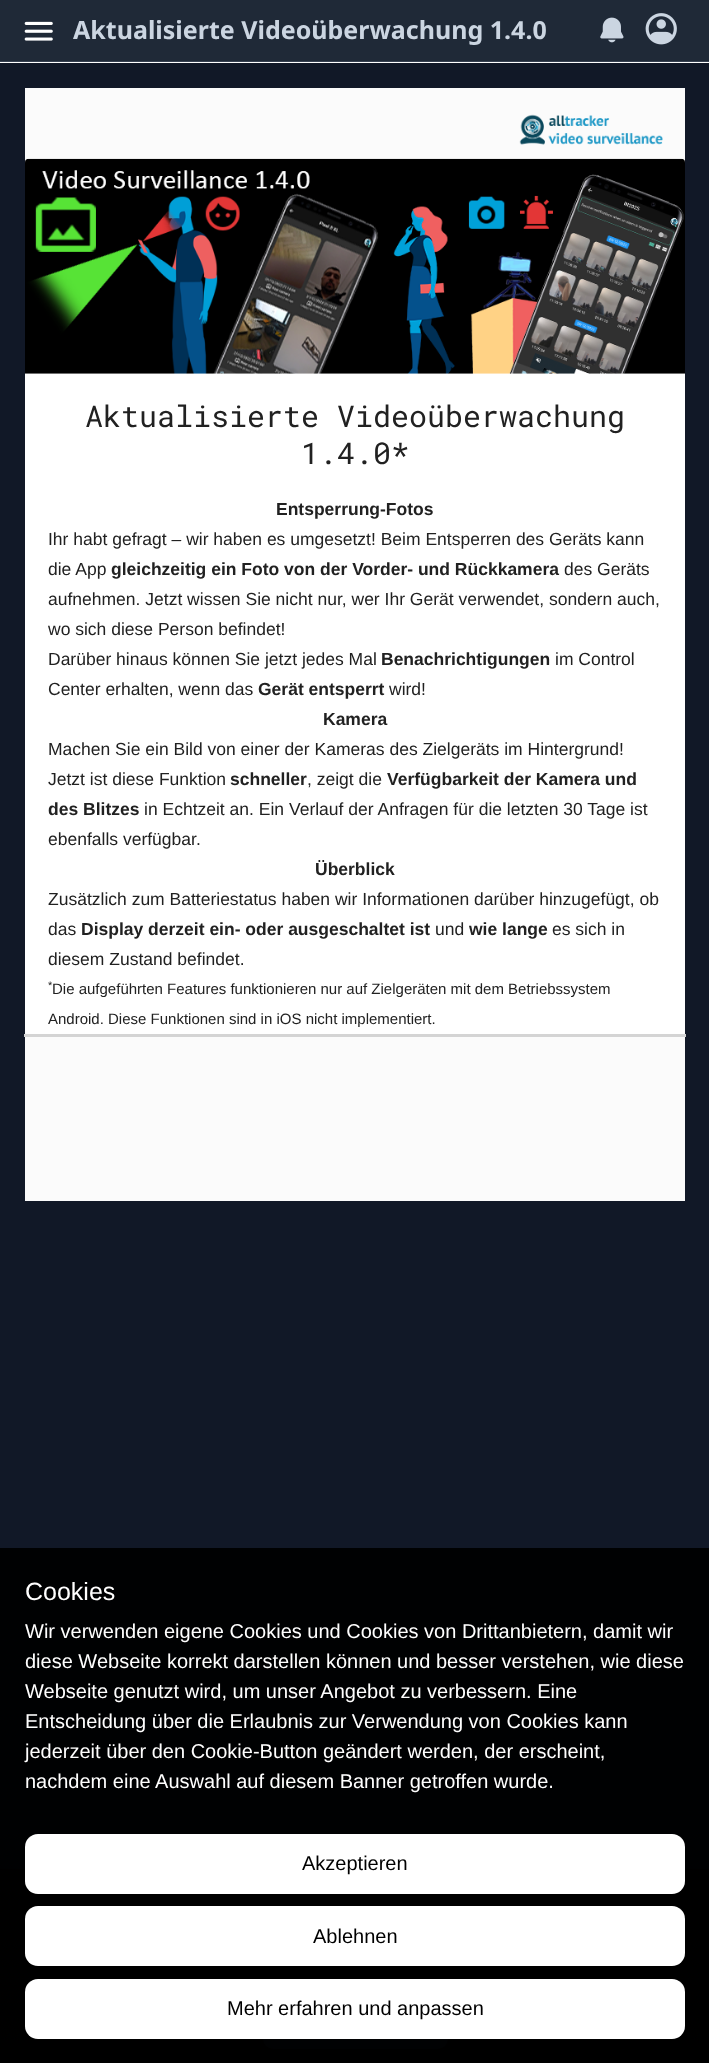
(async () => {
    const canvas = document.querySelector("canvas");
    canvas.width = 709;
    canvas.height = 2063;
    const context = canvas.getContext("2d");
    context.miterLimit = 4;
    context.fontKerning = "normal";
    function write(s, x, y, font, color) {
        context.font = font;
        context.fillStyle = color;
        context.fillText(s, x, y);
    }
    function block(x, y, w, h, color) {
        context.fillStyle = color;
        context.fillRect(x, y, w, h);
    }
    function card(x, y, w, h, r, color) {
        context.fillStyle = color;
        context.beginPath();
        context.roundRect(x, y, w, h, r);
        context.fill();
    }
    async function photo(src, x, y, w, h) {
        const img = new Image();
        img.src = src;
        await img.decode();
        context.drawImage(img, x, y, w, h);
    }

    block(0, 0, 709, 2063, "rgb(255, 255, 255)");
    block(0, 0, 709, 61, "rgb(31, 41, 55)");
    block(0, 61, 709, 1, "rgb(55, 65, 81)");
    await photo("media/1.png", 24, 21, 29, 20);
    write("Aktualisierte Videoüberwachung 1.4.0", 73, 39, "bold 25px Noto Sans", "rgb(203, 213, 225)");
    await photo("media/2.png", 600, 17, 24, 26);
    await photo("media/3.png", 645, 13, 32, 32);
    block(0, 63, 709, 1806, "rgb(17, 24, 39)");
    block(25, 88, 660, 1113, "rgb(251, 251, 251)");
    await photo("media/4.png", 519, 114, 144, 31);
    block(24, 1034, 662, 3, "rgb(212, 212, 212)");
    card(25, 159, 660, 875, 4, "rgb(255, 255, 255)");
    await photo("media/5.png", 25, 158, 660, 216);
    write("Aktualisierte Videoüberwachung", 85, 427, "30px Roboto Mono", "rgb(33, 33, 33)");
    write("1.4.0*", 301, 464, "30px Roboto Mono", "rgb(33, 33, 33)");
    write("Entsperrung-Fotos", 276, 515, "bold 17.5px Liberation Sans", "rgb(33, 33, 33)");
    write("Ihr habt gefragt – wir haben es umgesetzt! Beim Entsperren des Geräts kann", 48, 545, "17.5px Liberation Sans", "rgb(33, 33, 33)");
    write("die App", 48, 575, "17.5px Liberation Sans", "rgb(33, 33, 33)");
    write("gleichzeitig ein Foto von der Vorder- und Rückkamera", 111, 575, "bold 17.5px Liberation Sans", "rgb(33, 33, 33)");
    write("des Geräts", 564, 575, "17.5px Liberation Sans", "rgb(33, 33, 33)");
    write("aufnehmen. Jetzt wissen Sie nicht nur, wer Ihr Gerät verwendet, sondern auch,", 48, 605, "17.5px Liberation Sans", "rgb(33, 33, 33)");
    write("wo sich diese Person befindet!", 48, 635, "17.5px Liberation Sans", "rgb(33, 33, 33)");
    write("Darüber hinaus können Sie jetzt jedes Mal", 48, 665, "17.5px Liberation Sans", "rgb(33, 33, 33)");
    write("Benachrichtigungen", 381, 665, "bold 17.5px Liberation Sans", "rgb(33, 33, 33)");
    write("im Control", 555, 665, "17.5px Liberation Sans", "rgb(33, 33, 33)");
    write("Center erhalten, wenn das", 48, 695, "17.5px Liberation Sans", "rgb(33, 33, 33)");
    write("Gerät entsperrt", 258, 695, "bold 17.5px Liberation Sans", "rgb(33, 33, 33)");
    write("wird!", 389, 695, "17.5px Liberation Sans", "rgb(33, 33, 33)");
    write("Kamera", 323, 725, "bold 17.5px Liberation Sans", "rgb(33, 33, 33)");
    write("Machen Sie ein Bild von einer der Kameras des Zielgeräts im Hintergrund!", 48, 755, "17.5px Liberation Sans", "rgb(33, 33, 33)");
    write("Jetzt ist diese Funktion", 48, 785, "17.5px Liberation Sans", "rgb(33, 33, 33)");
    write("schneller", 230, 785, "bold 17.5px Liberation Sans", "rgb(33, 33, 33)");
    write(", zeigt die", 307, 785, "17.5px Liberation Sans", "rgb(33, 33, 33)");
    write("Verfügbarkeit der Kamera und", 387, 785, "bold 17.5px Liberation Sans", "rgb(33, 33, 33)");
    write("des Blitzes", 48, 815, "bold 17.5px Liberation Sans", "rgb(33, 33, 33)");
    write("in Echtzeit an. Ein Verlauf der Anfragen für die letzten 30 Tage ist", 144, 815, "17.5px Liberation Sans", "rgb(33, 33, 33)");
    write("ebenfalls verfügbar.", 48, 845, "17.5px Liberation Sans", "rgb(33, 33, 33)");
    write("Überblick", 315, 875, "bold 17.5px Liberation Sans", "rgb(33, 33, 33)");
    write("Zusätzlich zum Batteriestatus haben wir Informationen darüber hinzugefügt, ob", 48, 905, "17.5px Liberation Sans", "rgb(33, 33, 33)");
    write("das", 48, 935, "17.5px Liberation Sans", "rgb(33, 33, 33)");
    write("Display derzeit ein- oder ausgeschaltet ist", 81, 935, "bold 17.5px Liberation Sans", "rgb(33, 33, 33)");
    write("und", 435, 935, "17.5px Liberation Sans", "rgb(33, 33, 33)");
    write("wie lange", 469, 935, "bold 17.5px Liberation Sans", "rgb(33, 33, 33)");
    write("es sich in", 552, 935, "17.5px Liberation Sans", "rgb(33, 33, 33)");
    write("diesem Zustand befindet.", 48, 965, "17.5px Liberation Sans", "rgb(33, 33, 33)");
    write("*", 48, 989, "11px Liberation Sans", "rgb(33, 33, 33)");
    write("Die aufgeführten Features funktionieren nur auf Zielgeräten mit dem Betriebssystem", 52, 994, "15px Liberation Sans", "rgb(33, 33, 33)");
    write("Android. Diese Funktionen sind in iOS nicht implementiert.", 48, 1024, "15px Liberation Sans", "rgb(33, 33, 33)");
    block(0, 1869, 709, 194, "rgb(5, 7, 8)");
    card(263, 1999, 185, 50, 10, "rgb(31, 41, 55)");
    block(0, 1548, 709, 515, "rgba(0, 0, 0, 0.95)");
    write("Cookies", 25, 1600, "25px Liberation Sans", "rgb(255, 255, 255)");
    write("Wir verwenden eigene Cookies und Cookies von Drittanbietern, damit wir", 25, 1638, "20px Liberation Sans", "rgb(255, 255, 255)");
    write("diese Webseite korrekt darstellen können und besser verstehen, wie diese", 25, 1668, "20px Liberation Sans", "rgb(255, 255, 255)");
    write("Webseite genutzt wird, um unser Angebot zu verbessern. Eine", 25, 1698, "20px Liberation Sans", "rgb(255, 255, 255)");
    write("Entscheidung über die Erlaubnis zur Verwendung von Cookies kann", 25, 1728, "20px Liberation Sans", "rgb(255, 255, 255)");
    write("jederzeit über den Cookie-Button geändert werden, der erscheint,", 25, 1758, "20px Liberation Sans", "rgb(255, 255, 255)");
    write("nachdem eine Auswahl auf diesem Banner getroffen wurde.", 25, 1788, "20px Liberation Sans", "rgb(255, 255, 255)");
    card(25, 1834, 660, 60, 13, "rgb(255, 255, 255)");
    write("Akzeptieren", 302, 1870, "20px Liberation Sans", "rgb(0, 0, 0)");
    card(25, 1906, 660, 60, 13, "rgb(255, 255, 255)");
    write("Ablehnen", 313, 1943, "20px Liberation Sans", "rgb(0, 0, 0)");
    card(25, 1979, 660, 60, 13, "rgb(255, 255, 255)");
    write("Mehr erfahren und anpassen", 227, 2015, "20px Liberation Sans", "rgb(0, 0, 0)");
})();
